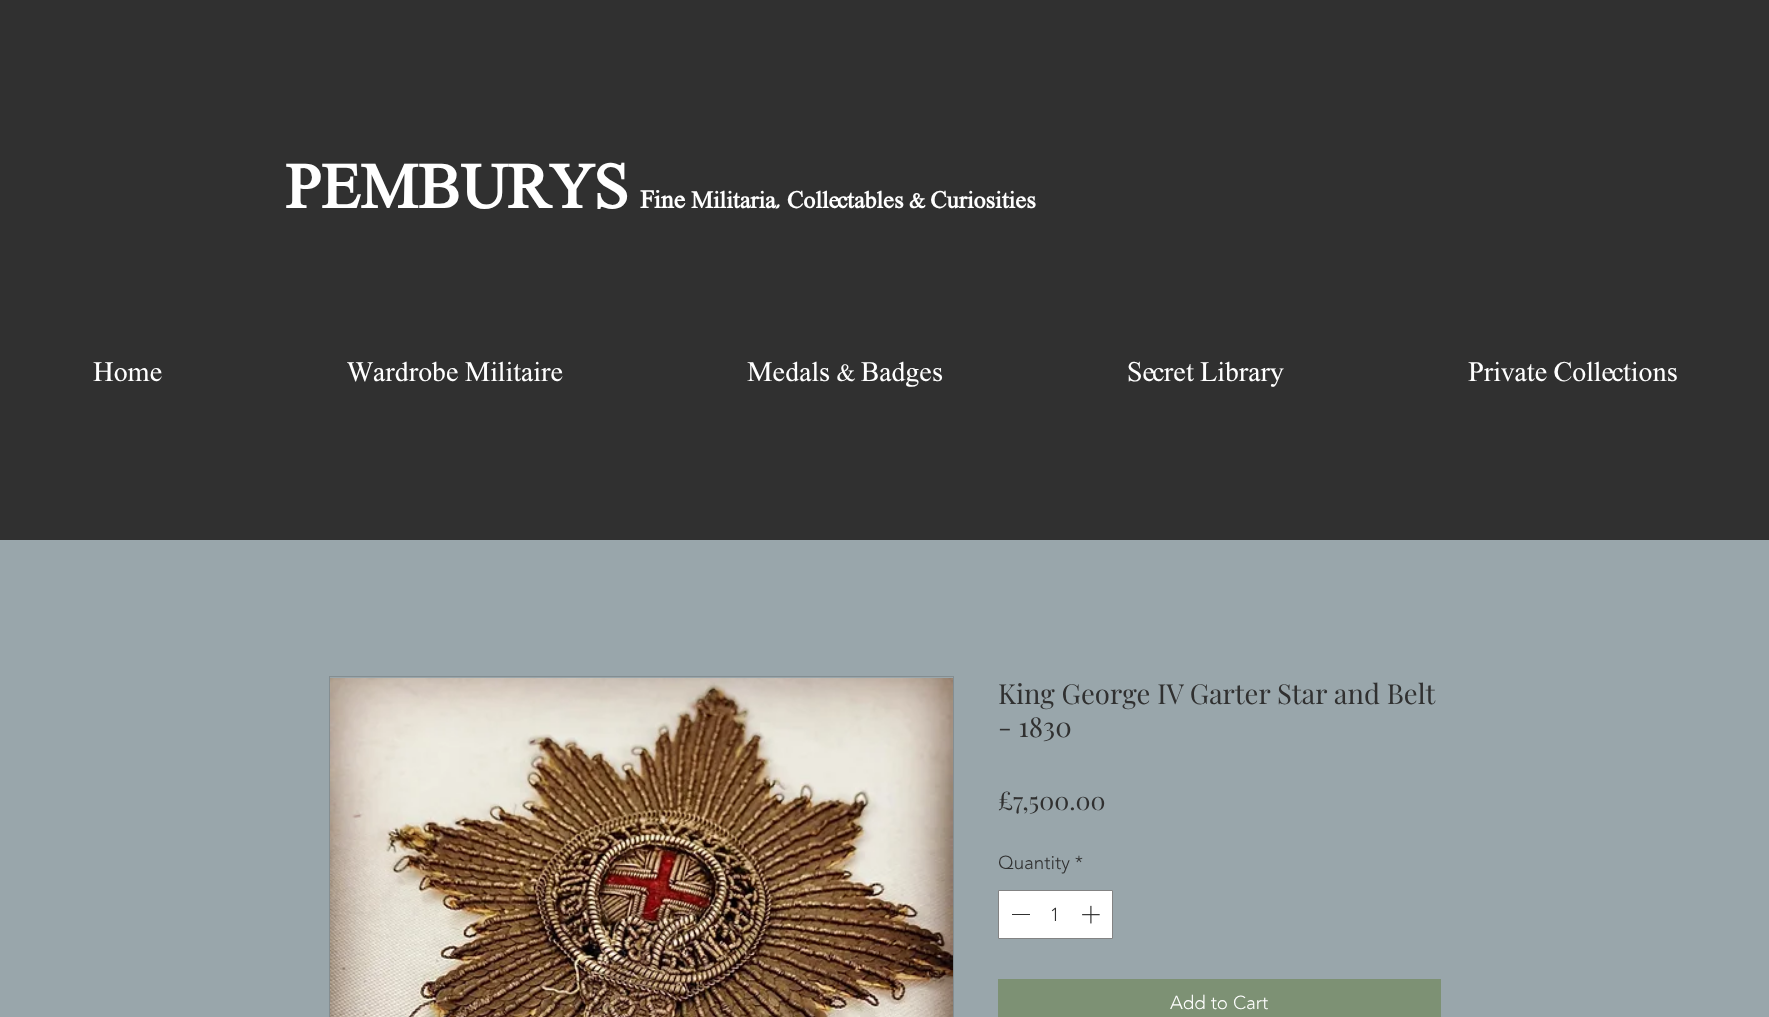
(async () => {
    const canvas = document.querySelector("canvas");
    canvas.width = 1769;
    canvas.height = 1017;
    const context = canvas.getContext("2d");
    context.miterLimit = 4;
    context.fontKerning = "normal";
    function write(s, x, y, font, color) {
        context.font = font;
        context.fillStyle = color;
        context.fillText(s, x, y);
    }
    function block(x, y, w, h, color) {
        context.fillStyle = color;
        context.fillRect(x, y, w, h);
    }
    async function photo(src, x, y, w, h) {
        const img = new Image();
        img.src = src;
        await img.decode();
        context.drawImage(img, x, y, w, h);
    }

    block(0, 0, 1769, 1017, "rgb(153, 166, 171)");
    block(0, 0, 1769, 540, "rgb(48, 48, 48)");
    write("PEMBURYS", 285, 208, "bold 62.5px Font", "rgb(255, 255, 255)");
    write("Fine", 640, 208, "bold 25px Font", "rgb(255, 255, 255)");
    write("Militaria, Collectables & Curiosities", 691, 208, "bold 23.75px Font", "rgb(255, 255, 255)");
    write("Home", 93, 381, "500 27.5px Font", "rgb(255, 255, 255)");
    write("Wardrobe Militaire", 347, 381, "500 27.5px Font", "rgb(255, 255, 255)");
    write("Medals & Badges", 747, 381, "500 27.5px Font", "rgb(255, 255, 255)");
    write("Secret Library", 1127, 381, "500 27.5px Font", "rgb(255, 255, 255)");
    write("Private Collections", 1468, 381, "500 27.5px Font", "rgb(255, 255, 255)");
    context.strokeStyle = "rgb(132, 142, 146)";
    context.strokeRect(329.5, 676.5, 624, 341);
    await photo("media/1.png", 330, 678, 623, 339);
    write("King George IV Garter Star and Belt", 998, 704, "27.5px Playfair Display", "rgb(48, 48, 48)");
    write("- 1830", 998, 737, "27.5px Playfair Display", "rgb(48, 48, 48)");
    write("£7,500.00", 998, 810, "25px Playfair Display", "rgb(48, 48, 48)");
    write("Quantity *", 998, 869, "300 18.75px 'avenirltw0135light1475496'", "rgb(48, 48, 48)");
    context.fillStyle = "rgb(255, 255, 255)";
    context.beginPath();
    context.rect(998.5, 890.5, 114, 48);
    context.fill();
    context.strokeStyle = "rgb(131, 131, 131)";
    context.stroke();
    block(1012, 914, 18, 1, "rgb(48, 48, 48)");
    write("1", 1050, 921, "300 18.75px 'avenirltw0135light1475496'", "rgb(48, 48, 48)");
    await photo("media/2.png", 1082, 905, 18, 19);
    block(998, 979, 443, 38, "rgb(125, 145, 116)");
    write("Add to Cart", 1170, 1009, "300 18.75px 'avenirltw0135light1475496'", "rgb(255, 255, 255)");
})();
